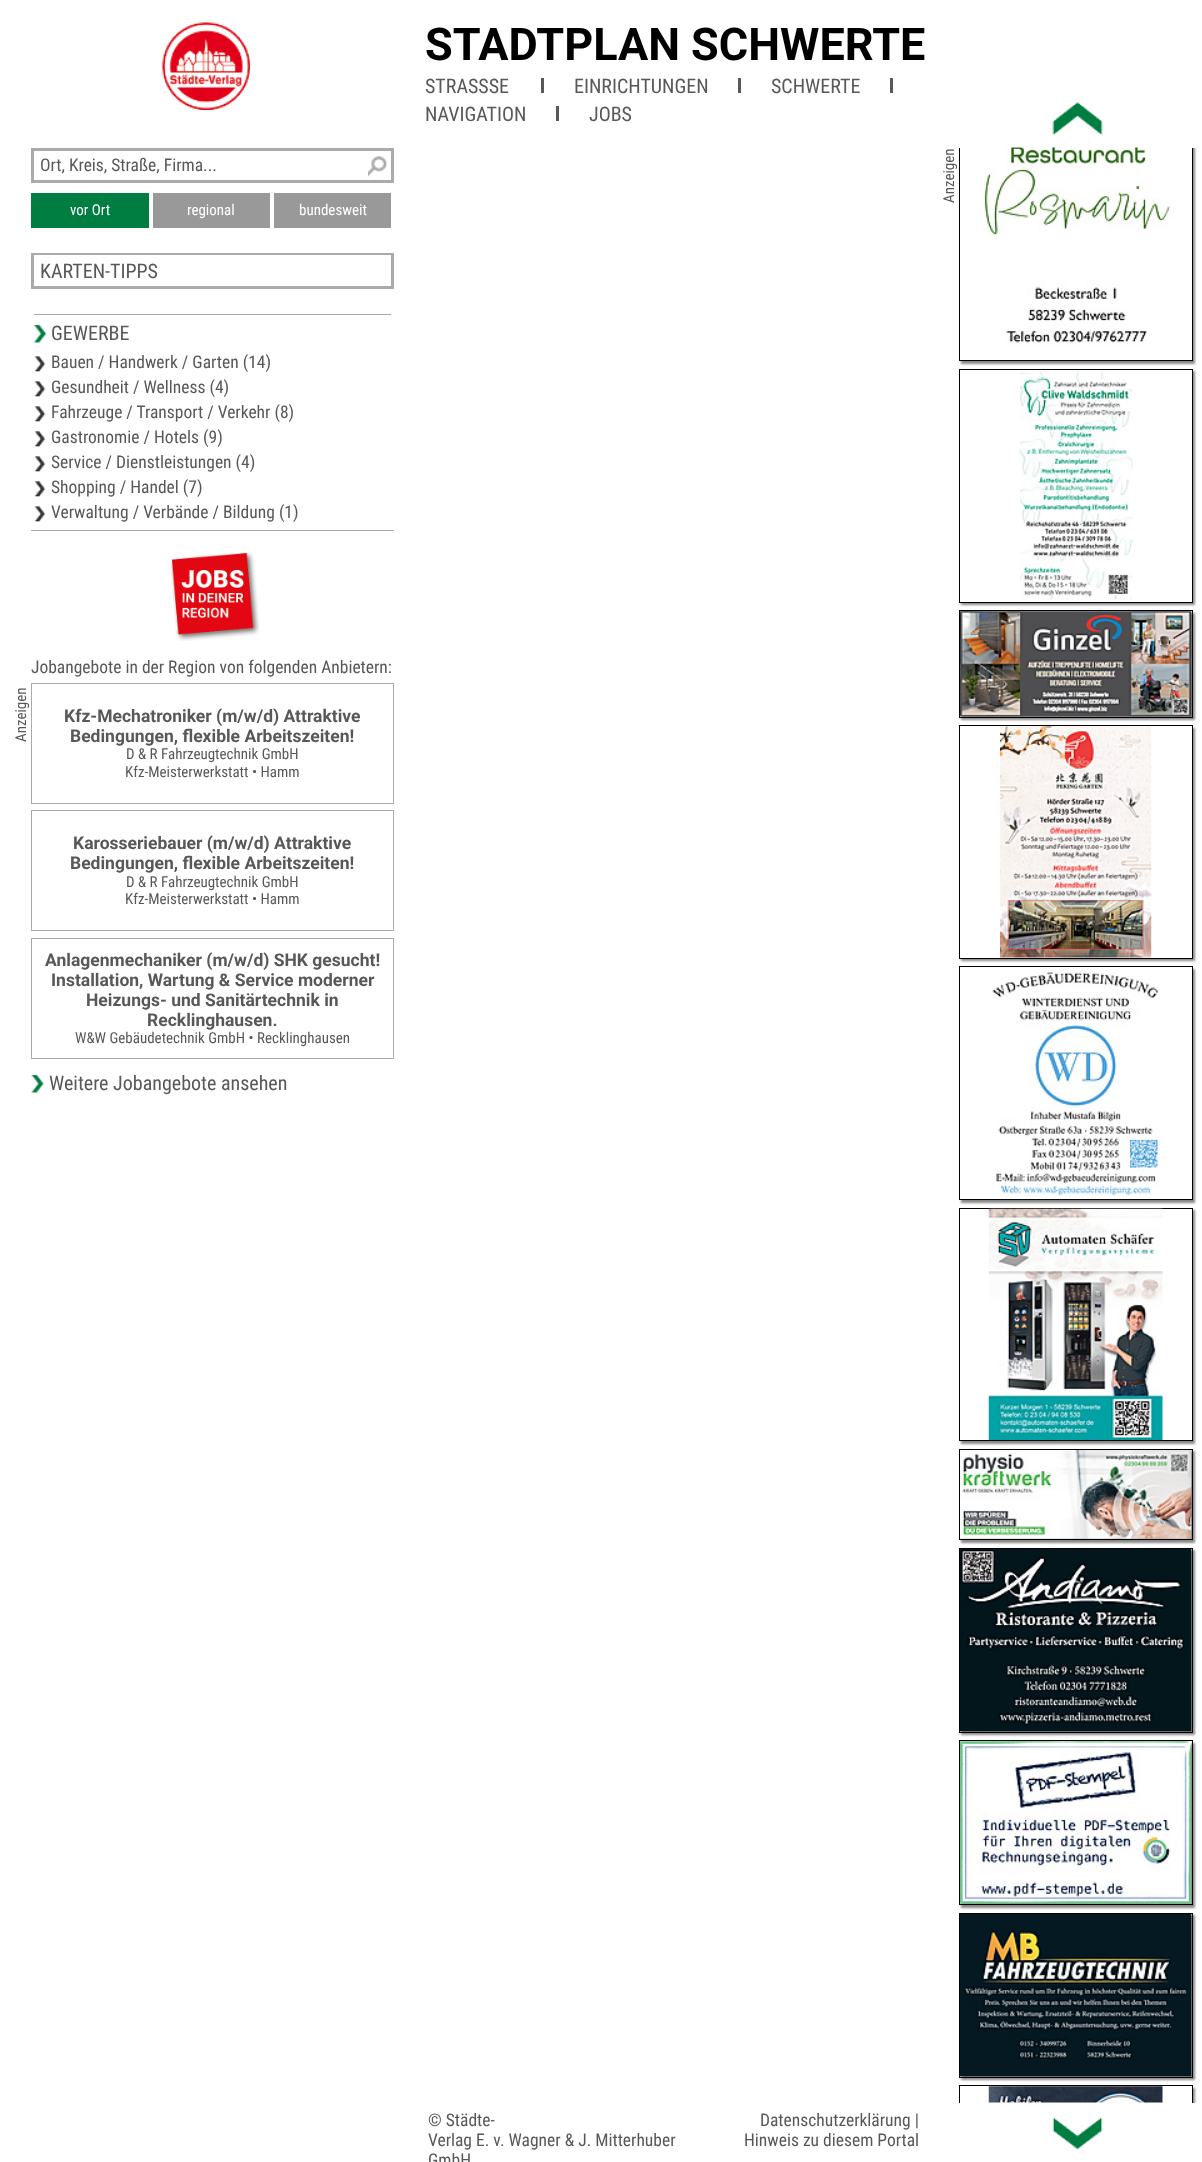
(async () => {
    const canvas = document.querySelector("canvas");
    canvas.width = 1202;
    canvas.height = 2162;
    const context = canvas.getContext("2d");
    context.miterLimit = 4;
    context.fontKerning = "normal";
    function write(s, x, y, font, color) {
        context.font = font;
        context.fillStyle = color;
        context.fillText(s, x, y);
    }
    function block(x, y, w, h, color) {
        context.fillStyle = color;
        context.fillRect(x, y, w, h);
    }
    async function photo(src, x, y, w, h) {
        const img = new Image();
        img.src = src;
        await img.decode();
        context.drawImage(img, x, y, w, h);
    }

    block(0, 0, 1202, 2162, "rgb(255, 255, 255)");
    await photo("media/1.png", 162, 22, 88, 88);
    write("STADTPLAN SCHWERTE", 425, 60, "bold 45px Roboto", "rgb(0, 0, 0)");
    write("STRASSSE", 425, 93, "20px Roboto Condensed", "rgb(88, 88, 90)");
    block(541, 78, 3, 15, "rgb(88, 88, 90)");
    write("EINRICHTUNGEN", 574, 93, "20px Roboto Condensed", "rgb(88, 88, 90)");
    block(738, 78, 3, 15, "rgb(88, 88, 90)");
    write("SCHWERTE", 771, 93, "20px Roboto Condensed", "rgb(88, 88, 90)");
    block(890, 78, 3, 15, "rgb(88, 88, 90)");
    write("NAVIGATION", 425, 121, "20px Roboto Condensed", "rgb(88, 88, 90)");
    block(556, 106, 3, 15, "rgb(88, 88, 90)");
    write("JOBS", 589, 121, "20px Roboto Condensed", "rgb(88, 88, 90)");
    await photo("media/2.png", 368, 156, 19, 21);
    context.strokeStyle = "rgb(170, 170, 170)";
    context.lineWidth = 3;
    context.strokeRect(32.5, 149.5, 360, 32);
    write("Ort, Kreis, Straße, Firma...", 40, 171, "17.5px Roboto Condensed", "rgb(88, 88, 90)");
    block(31, 193, 118, 35, "rgb(0, 125, 64)");
    write("vor Ort", 70, 215, "15px Roboto Condensed", "rgb(255, 255, 255)");
    block(153, 193, 117, 35, "rgb(153, 153, 153)");
    write("regional", 187, 215, "15px Roboto Condensed", "rgb(255, 255, 255)");
    block(274, 193, 117, 35, "rgb(153, 153, 153)");
    write("bundesweit", 299, 215, "15px Roboto Condensed", "rgb(255, 255, 255)");
    context.strokeRect(32.5, 254.5, 360, 33);
    block(34, 255, 357, 1, "rgb(255, 255, 255)");
    write("KARTEN-TIPPS", 40, 278, "20px Roboto Condensed", "rgb(88, 88, 90)");
    await photo("media/3.png", 33, 324, 14, 19);
    block(34, 314, 357, 1, "rgb(170, 170, 170)");
    write("GEWERBE", 51, 340, "20px Roboto Condensed", "rgb(88, 88, 90)");
    await photo("media/4.png", 34, 356, 12, 16);
    write("Bauen / Handwerk / Garten (14)", 51, 368, "17.5px Roboto Condensed", "rgb(88, 88, 90)");
    await photo("media/4.png", 34, 381, 12, 16);
    write("Gesundheit / Wellness (4)", 51, 393, "17.5px Roboto Condensed", "rgb(88, 88, 90)");
    await photo("media/4.png", 34, 406, 12, 16);
    write("Fahrzeuge / Transport / Verkehr (8)", 51, 418, "17.5px Roboto Condensed", "rgb(88, 88, 90)");
    await photo("media/4.png", 34, 431, 12, 16);
    write("Gastronomie / Hotels (9)", 51, 443, "17.5px Roboto Condensed", "rgb(88, 88, 90)");
    await photo("media/4.png", 34, 456, 12, 16);
    write("Service / Dienstleistungen (4)", 51, 468, "17.5px Roboto Condensed", "rgb(88, 88, 90)");
    await photo("media/4.png", 34, 481, 12, 16);
    write("Shopping / Handel (7)", 51, 493, "17.5px Roboto Condensed", "rgb(88, 88, 90)");
    await photo("media/4.png", 34, 506, 12, 16);
    write("Verwaltung / Verbände / Bildung (1)", 51, 518, "17.5px Roboto Condensed", "rgb(88, 88, 90)");
    write("Jobangebote in der Region von folgenden Anbietern:", 31, 673, "17.5px Roboto Condensed", "rgb(88, 88, 90)");
    await photo("media/5.png", 170, 552, 90, 89);
    block(31, 530, 363, 1, "rgb(170, 170, 170)");
    context.font = "15px Roboto Condensed";
    context.fillStyle = "rgb(88, 88, 90)";
    context.save();
    context.translate(26, 742);
    context.rotate(-90 * Math.PI / 180);
    context.fillText("Anzeigen", 0, 0);
    context.restore();
    context.lineWidth = 1;
    context.strokeRect(31.5, 683.5, 362, 120);
    write("Kfz-Mechatroniker (m/w/d) Attraktive", 64, 722, "bold 17.5px Roboto", "rgb(88, 88, 90)");
    write("Bedingungen, flexible Arbeitszeiten!", 70, 742, "bold 17.5px Roboto", "rgb(88, 88, 90)");
    write("D & R Fahrzeugtechnik GmbH", 126, 759, "15px Roboto Condensed", "rgb(88, 88, 90)");
    write("Kfz-Meisterwerkstatt • Hamm", 125, 777, "15px Roboto Condensed", "rgb(88, 88, 90)");
    context.strokeRect(31.5, 810.5, 362, 120);
    write("Karosseriebauer (m/w/d) Attraktive", 73, 849, "bold 17.5px Roboto", "rgb(88, 88, 90)");
    write("Bedingungen, flexible Arbeitszeiten!", 70, 869, "bold 17.5px Roboto", "rgb(88, 88, 90)");
    write("D & R Fahrzeugtechnik GmbH", 126, 887, "15px Roboto Condensed", "rgb(88, 88, 90)");
    write("Kfz-Meisterwerkstatt • Hamm", 125, 904, "15px Roboto Condensed", "rgb(88, 88, 90)");
    context.strokeRect(31.5, 938.5, 362, 120);
    write("Anlagenmechaniker (m/w/d) SHK gesucht!", 45, 966, "bold 17.5px Roboto", "rgb(88, 88, 90)");
    write("Installation, Wartung & Service moderner", 51, 986, "bold 17.5px Roboto", "rgb(88, 88, 90)");
    write("Heizungs- und Sanitärtechnik in", 86, 1006, "bold 17.5px Roboto", "rgb(88, 88, 90)");
    write("Recklinghausen.", 147, 1026, "bold 17.5px Roboto", "rgb(88, 88, 90)");
    write("W&W Gebäudetechnik GmbH • Recklinghausen", 75, 1043, "15px Roboto Condensed", "rgb(88, 88, 90)");
    await photo("media/6.png", 31, 1074, 13, 19);
    write("Weitere Jobangebote ansehen", 49, 1090, "20px Roboto Condensed", "rgb(88, 88, 90)");
    await photo("media/7.png", 1052, 102, 51, 34);
    context.font = "15px Roboto Condensed";
    context.save();
    context.translate(954, 203);
    context.rotate(-90 * Math.PI / 180);
    context.fillText("Anzeigen", 0, 0);
    context.restore();
    context.save();
    context.beginPath();
    context.rect(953, 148, 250, 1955);
    context.clip();
    context.beginPath();
    context.moveTo(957, 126);
    context.lineTo(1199, 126);
    context.lineTo(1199, 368);
    context.lineTo(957, 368);
    context.closePath();
    context.moveTo(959, 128);
    context.lineTo(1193, 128);
    context.lineTo(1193, 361);
    context.lineTo(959, 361);
    context.closePath();
    context.clip("evenodd");
    context.fillStyle = "rgb(136, 136, 136)";
    context.filter = "blur(1px)";
    context.beginPath();
    context.rect(961, 130, 234, 234);
    context.fill();
    context.filter = "none";
    context.restore();
    context.save();
    context.beginPath();
    context.rect(953, 148, 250, 1955);
    context.clip();
    context.strokeStyle = "rgb(0, 0, 0)";
    context.strokeRect(959.5, 128.5, 233, 232);
    context.restore();
    await photo("media/8.png", 984, 147, 191, 199);
    context.save();
    context.beginPath();
    context.moveTo(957, 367);
    context.lineTo(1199, 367);
    context.lineTo(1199, 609);
    context.lineTo(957, 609);
    context.closePath();
    context.moveTo(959, 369);
    context.lineTo(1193, 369);
    context.lineTo(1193, 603);
    context.lineTo(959, 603);
    context.closePath();
    context.clip("evenodd");
    context.fillStyle = "rgb(136, 136, 136)";
    context.filter = "blur(1px)";
    context.beginPath();
    context.rect(961, 371, 234, 234);
    context.fill();
    context.filter = "none";
    context.restore();
    context.strokeStyle = "rgb(0, 0, 0)";
    context.strokeRect(959.5, 369.5, 233, 233);
    await photo("media/9.png", 1020, 370, 113, 230);
    context.fillStyle = "rgb(136, 136, 136)";
    context.filter = "blur(1px)";
    context.beginPath();
    context.rect(961, 613, 234, 107);
    context.fill();
    context.filter = "none";
    context.strokeRect(959.5, 610.5, 233, 107);
    await photo("media/10.png", 960, 611, 232, 106);
    context.save();
    context.beginPath();
    context.moveTo(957, 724);
    context.lineTo(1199, 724);
    context.lineTo(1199, 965);
    context.lineTo(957, 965);
    context.closePath();
    context.moveTo(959, 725);
    context.lineTo(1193, 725);
    context.lineTo(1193, 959);
    context.lineTo(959, 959);
    context.closePath();
    context.clip("evenodd");
    context.filter = "blur(1px)";
    context.beginPath();
    context.rect(961, 728, 234, 233);
    context.fill();
    context.filter = "none";
    context.restore();
    context.strokeRect(959.5, 725.5, 233, 233);
    await photo("media/11.png", 1000, 726, 152, 232);
    context.save();
    context.beginPath();
    context.moveTo(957, 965);
    context.lineTo(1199, 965);
    context.lineTo(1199, 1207);
    context.lineTo(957, 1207);
    context.closePath();
    context.moveTo(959, 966);
    context.lineTo(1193, 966);
    context.lineTo(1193, 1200);
    context.lineTo(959, 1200);
    context.closePath();
    context.clip("evenodd");
    context.filter = "blur(1px)";
    context.beginPath();
    context.rect(961, 969, 234, 234);
    context.fill();
    context.filter = "none";
    context.restore();
    context.strokeRect(959.5, 966.5, 233, 233);
    await photo("media/12.png", 992, 969, 168, 229);
    context.save();
    context.beginPath();
    context.moveTo(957, 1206);
    context.lineTo(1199, 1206);
    context.lineTo(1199, 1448);
    context.lineTo(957, 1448);
    context.closePath();
    context.moveTo(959, 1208);
    context.lineTo(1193, 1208);
    context.lineTo(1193, 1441);
    context.lineTo(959, 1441);
    context.closePath();
    context.clip("evenodd");
    context.filter = "blur(1px)";
    context.beginPath();
    context.rect(961, 1210, 234, 234);
    context.fill();
    context.filter = "none";
    context.restore();
    context.strokeRect(959.5, 1208.5, 233, 232);
    await photo("media/13.png", 988, 1208, 175, 232);
    context.filter = "blur(1px)";
    context.beginPath();
    context.rect(961, 1451, 234, 92);
    context.fill();
    context.filter = "none";
    context.strokeRect(959.5, 1449.5, 233, 90);
    await photo("media/14.png", 960, 1450, 232, 89);
    context.filter = "blur(1px)";
    context.beginPath();
    context.rect(961, 1550, 234, 185);
    context.fill();
    context.filter = "none";
    context.strokeRect(959.5, 1548.5, 233, 184);
    await photo("media/15.png", 960, 1548, 232, 184);
    context.filter = "blur(1px)";
    context.beginPath();
    context.rect(961, 1743, 234, 165);
    context.fill();
    context.filter = "none";
    context.strokeRect(959.5, 1740.5, 233, 164);
    await photo("media/16.png", 960, 1741, 232, 163);
    context.filter = "blur(1px)";
    context.beginPath();
    context.rect(961, 1915, 234, 165);
    context.fill();
    context.filter = "none";
    context.strokeRect(959.5, 1913.5, 233, 164);
    await photo("media/17.png", 960, 1913, 232, 164);
    await photo("media/19.png", 1052, 2117, 51, 32);
    context.save();
    context.beginPath();
    context.rect(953, 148, 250, 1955);
    context.clip();
    context.beginPath();
    context.rect(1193, 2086, 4, 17);
    context.clip();
    context.filter = "blur(1px)";
    context.beginPath();
    context.rect(961, 2088, 234, 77);
    context.fill();
    context.filter = "none";
    context.restore();
    context.save();
    context.beginPath();
    context.rect(953, 148, 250, 1955);
    context.clip();
    context.strokeRect(959.5, 2085.5, 233, 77);
    context.restore();
    await photo("media/18.png", 988, 2086, 175, 17);
    write("© Städte-", 428, 2126, "17.5px Roboto Condensed", "rgb(88, 88, 90)");
    write("Verlag E. v. Wagner & J. Mitterhuber", 428, 2146, "17.5px Roboto Condensed", "rgb(88, 88, 90)");
    write("GmbH", 428, 2166, "17.5px Roboto Condensed", "rgb(88, 88, 90)");
    write("Datenschutzerklärung |", 760, 2126, "17.5px Roboto Condensed", "rgb(88, 88, 90)");
    write("Hinweis zu diesem Portal", 744, 2146, "17.5px Roboto Condensed", "rgb(88, 88, 90)");
})();
